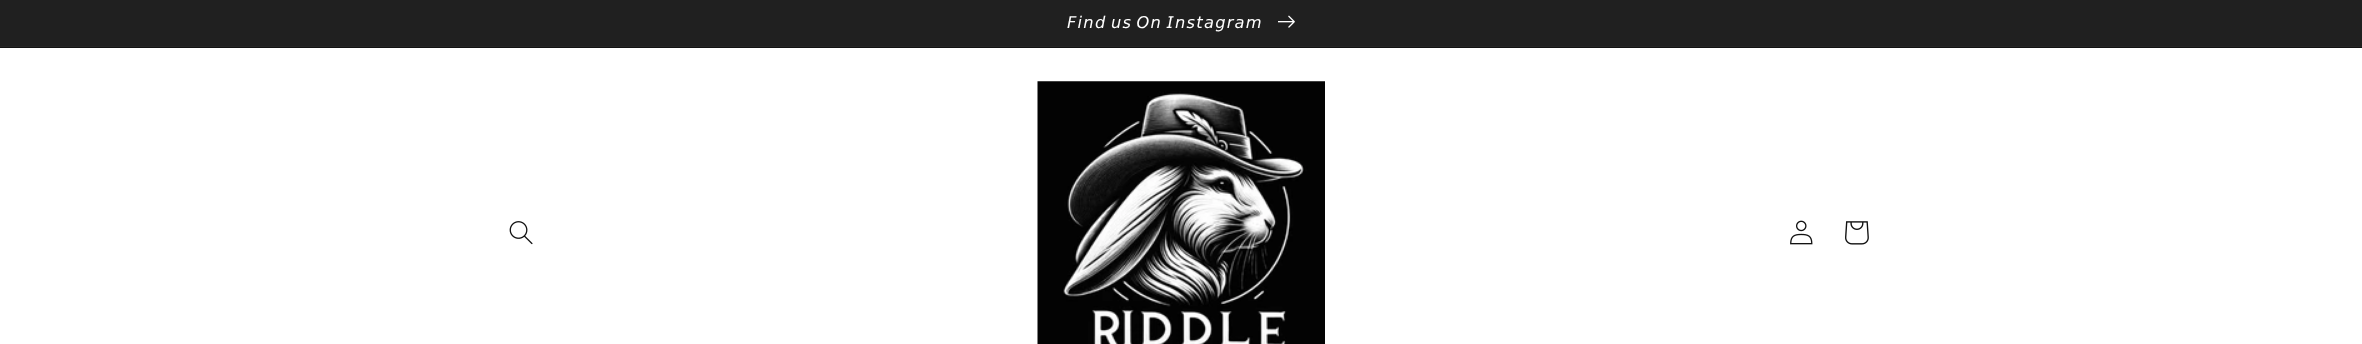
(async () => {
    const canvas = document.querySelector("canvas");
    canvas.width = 2362;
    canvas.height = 344;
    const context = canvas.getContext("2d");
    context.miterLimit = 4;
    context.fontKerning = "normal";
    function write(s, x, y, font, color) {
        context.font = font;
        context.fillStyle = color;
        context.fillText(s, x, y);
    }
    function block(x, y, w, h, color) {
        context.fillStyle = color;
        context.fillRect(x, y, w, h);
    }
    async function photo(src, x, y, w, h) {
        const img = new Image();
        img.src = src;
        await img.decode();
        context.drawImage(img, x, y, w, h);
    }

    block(0, 0, 2362, 344, "rgb(255, 255, 255)");
    block(0, 47, 2362, 1, "rgb(18, 18, 18)");
    block(0, 46, 2362, 1, "rgb(37, 37, 37)");
    block(0, 0, 2362, 46, "rgb(32, 32, 32)");
    context.letterSpacing = "1.25px";
    context.wordSpacing = "-2px";
    write("𝘍𝘪𝘯𝘥 𝘶𝘴 𝘖𝘯 𝘐𝘯𝘴𝘵𝘢𝘨𝘳𝘢𝘮", 1067, 28, "italic 16.25px DejaVu Sans", "rgb(255, 255, 255)");
    await photo("media/1.png", 1278, 15, 17, 13);
    await photo("media/2.png", 509, 221, 24, 24);
    await photo("media/3.png", 1037, 81, 288, 263);
    await photo("media/4.png", 1790, 220, 23, 25);
    await photo("media/5.png", 1845, 221, 24, 24);
})();
